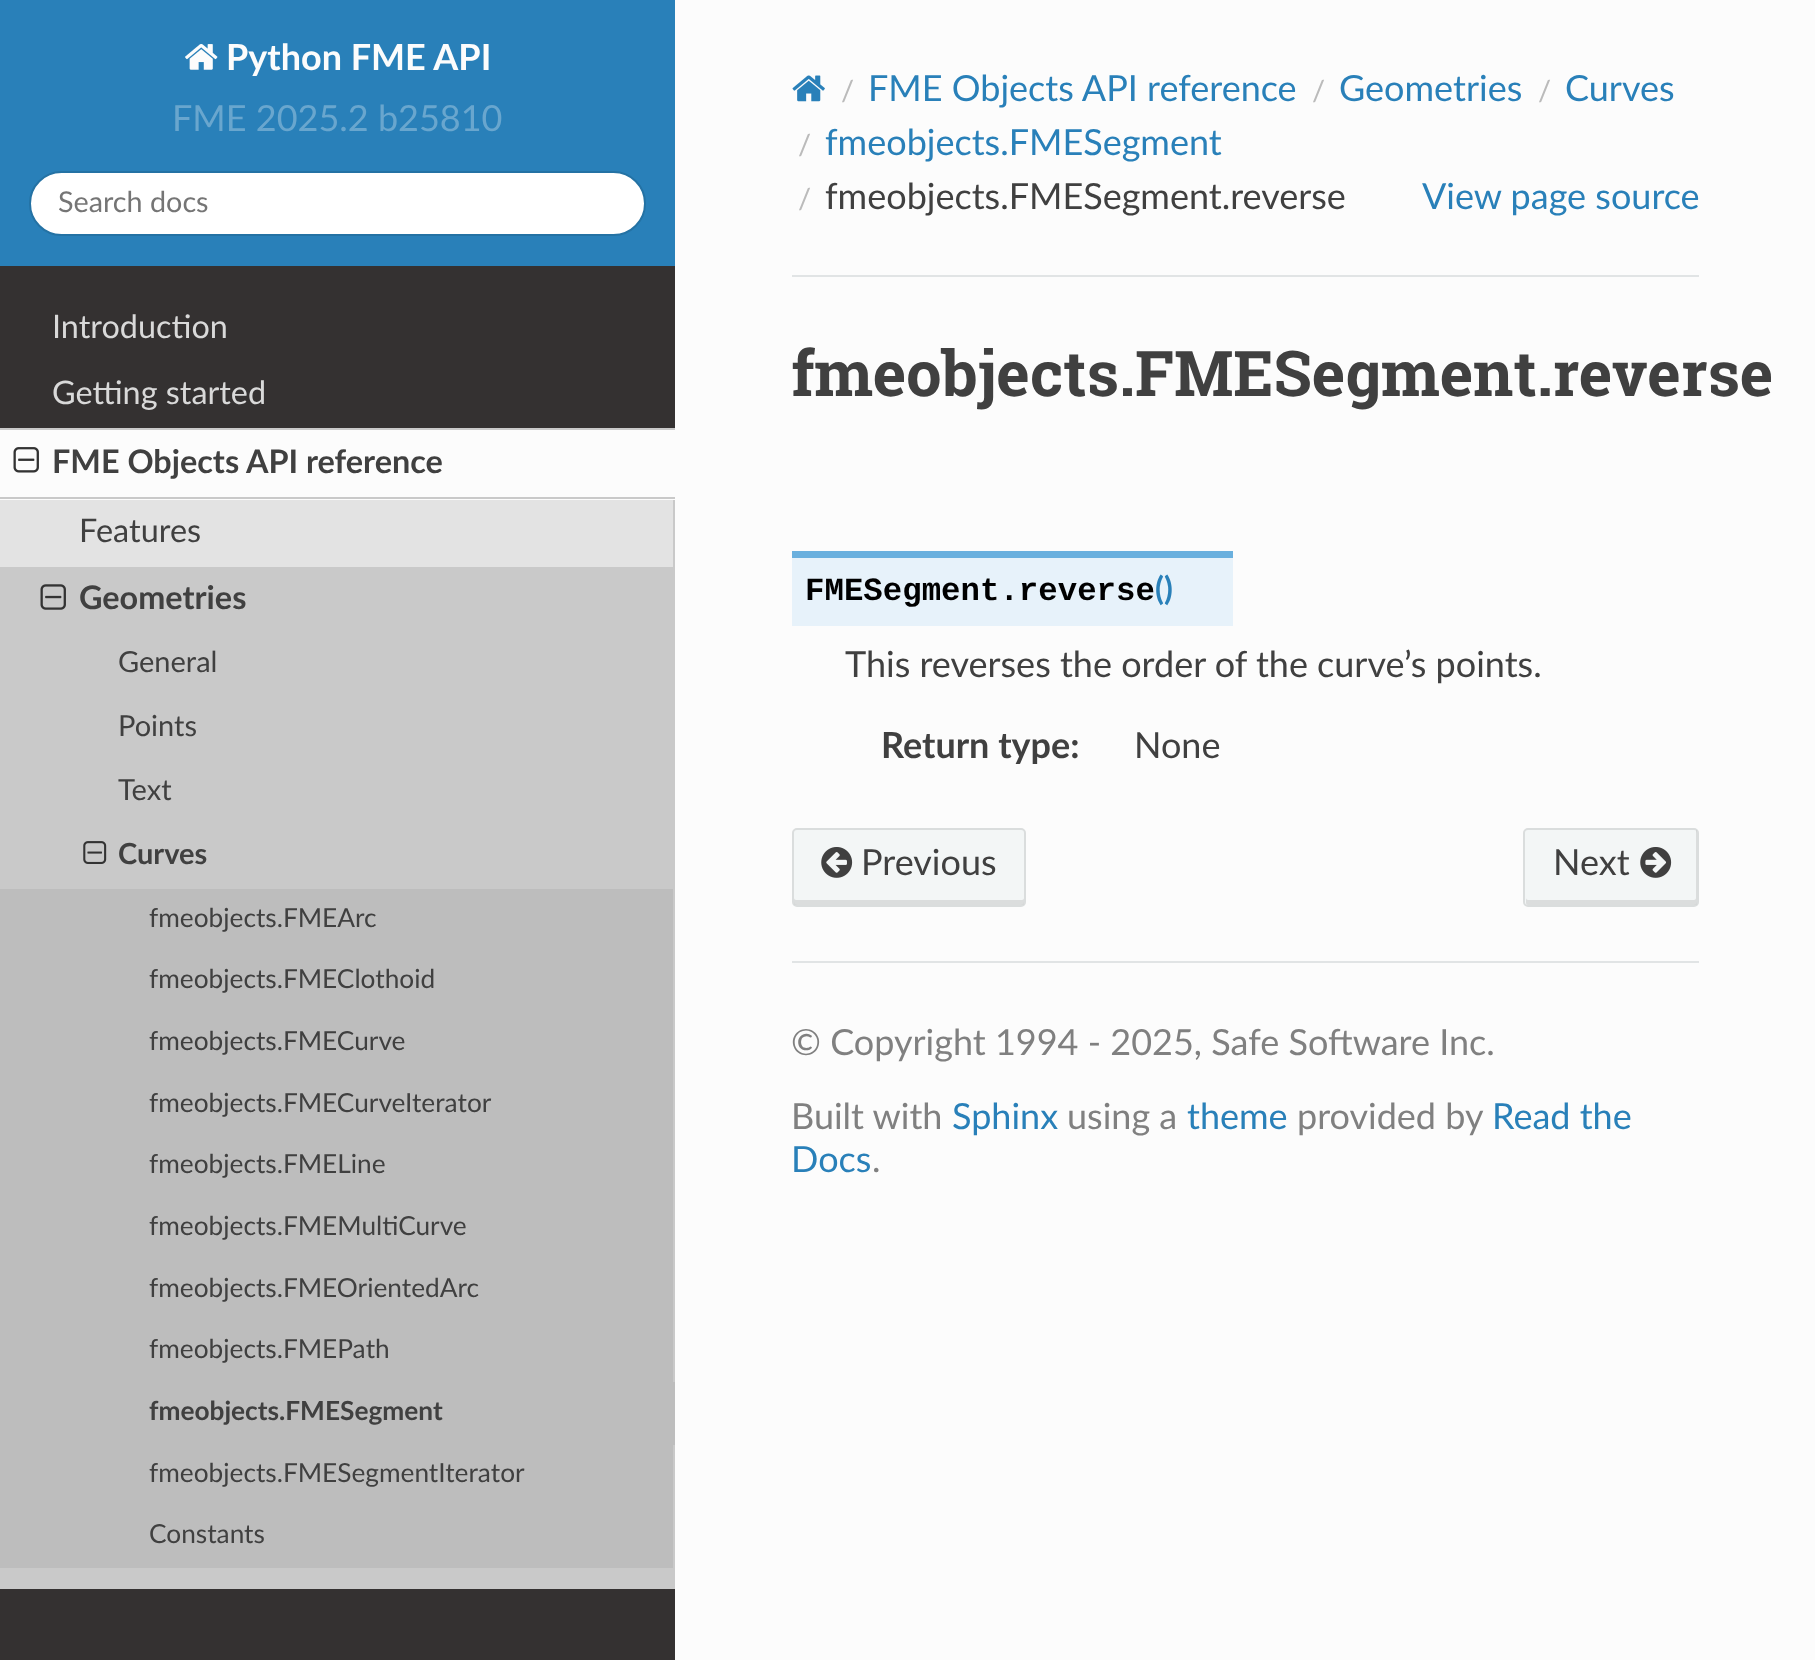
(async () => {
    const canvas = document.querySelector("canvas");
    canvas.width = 1815;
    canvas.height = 1660;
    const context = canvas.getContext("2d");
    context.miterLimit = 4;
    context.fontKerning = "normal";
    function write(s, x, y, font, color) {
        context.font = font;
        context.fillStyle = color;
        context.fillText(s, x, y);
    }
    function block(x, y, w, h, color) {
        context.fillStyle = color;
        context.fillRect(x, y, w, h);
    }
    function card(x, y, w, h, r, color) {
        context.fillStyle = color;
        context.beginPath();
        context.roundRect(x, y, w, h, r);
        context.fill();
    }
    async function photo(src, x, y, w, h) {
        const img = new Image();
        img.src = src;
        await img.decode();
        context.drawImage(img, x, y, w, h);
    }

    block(0, 0, 1815, 1660, "rgb(252, 252, 252)");
    block(0, 266, 675, 1394, "rgb(52, 49, 49)");
    block(0, 0, 675, 266, "rgb(41, 128, 185)");
    await photo("media/1.png", 185, 44, 33, 26);
    write("Python FME API", 226, 70, "bold 36px Lato", "rgb(252, 252, 252)");
    write("FME 2025.2 b25810", 172, 131, "36px Lato", "rgb(105, 166, 206)");
    context.fillStyle = "rgb(255, 255, 255)";
    context.beginPath();
    context.roundRect(30, 172, 615, 63, 31.5);
    context.fill();
    context.strokeStyle = "rgb(36, 114, 164)";
    context.lineWidth = 2;
    context.stroke();
    write("Search docs", 58, 212, "28.75px Lato", "rgb(117, 117, 117)");
    write("Introduction", 52, 338, "32.4px Lato", "rgb(217, 217, 217)");
    write("Getting started", 52, 404, "32.4px Lato", "rgb(217, 217, 217)");
    block(0, 500, 673, 67, "rgb(227, 227, 227)");
    block(0, 430, 675, 70, "rgb(252, 252, 252)");
    block(0, 428, 675, 2, "rgb(201, 201, 201)");
    block(0, 497, 675, 2, "rgb(201, 201, 201)");
    await photo("media/2.png", 13, 447, 26, 26);
    write("FME Objects API reference", 52, 473, "bold 32.4px Lato", "rgb(64, 64, 64)");
    block(673, 500, 2, 67, "rgb(201, 201, 201)");
    write("Features", 79, 542, "32.4px Lato", "rgb(64, 64, 64)");
    block(0, 567, 675, 322, "rgb(201, 201, 201)");
    await photo("media/3.png", 40, 584, 26, 26);
    write("Geometries", 79, 609, "bold 32.4px Lato", "rgb(64, 64, 64)");
    write("General", 118, 672, "29px Lato", "rgb(64, 64, 64)");
    write("Points", 118, 736, "29px Lato", "rgb(64, 64, 64)");
    write("Text", 118, 800, "29px Lato", "rgb(64, 64, 64)");
    await photo("media/4.png", 83, 841, 24, 23);
    write("Curves", 118, 864, "bold 29px Lato", "rgb(64, 64, 64)");
    block(0, 889, 673, 493, "rgb(189, 189, 189)");
    block(673, 889, 2, 493, "rgb(201, 201, 201)");
    write("fmeobjects.FMEArc", 149, 927, "26.25px Lato", "rgb(64, 64, 64)");
    write("fmeobjects.FMEClothoid", 149, 988, "26.25px Lato", "rgb(64, 64, 64)");
    write("fmeobjects.FMECurve", 149, 1050, "26.25px Lato", "rgb(64, 64, 64)");
    write("fmeobjects.FMECurveIterator", 149, 1112, "26.25px Lato", "rgb(64, 64, 64)");
    write("fmeobjects.FMELine", 149, 1173, "26.25px Lato", "rgb(64, 64, 64)");
    write("fmeobjects.FMEMultiCurve", 149, 1235, "26.25px Lato", "rgb(64, 64, 64)");
    write("fmeobjects.FMEOrientedArc", 149, 1297, "26.25px Lato", "rgb(64, 64, 64)");
    write("fmeobjects.FMEPath", 149, 1358, "26.25px Lato", "rgb(64, 64, 64)");
    block(0, 1382, 675, 63, "rgb(189, 189, 189)");
    write("fmeobjects.FMESegment", 149, 1420, "bold 26.25px Lato", "rgb(64, 64, 64)");
    block(0, 1445, 673, 123, "rgb(189, 189, 189)");
    block(673, 1445, 2, 123, "rgb(201, 201, 201)");
    write("fmeobjects.FMESegmentIterator", 149, 1482, "26.25px Lato", "rgb(64, 64, 64)");
    write("Constants", 149, 1543, "26.25px Lato", "rgb(64, 64, 64)");
    block(0, 1568, 675, 21, "rgb(201, 201, 201)");
    await photo("media/5.png", 792, 75, 33, 27);
    write("/", 841, 101, "29px Lato", "rgb(187, 187, 187)");
    write("FME Objects API reference", 868, 101, "36px Lato", "rgb(41, 128, 185)");
    write("/", 1312, 101, "29px Lato", "rgb(187, 187, 187)");
    write("Geometries", 1339, 101, "36px Lato", "rgb(41, 128, 185)");
    write("/", 1538, 101, "29px Lato", "rgb(187, 187, 187)");
    write("Curves", 1565, 101, "36px Lato", "rgb(41, 128, 185)");
    write("/", 798, 155, "29px Lato", "rgb(187, 187, 187)");
    write("fmeobjects.FMESegment", 825, 155, "36px Lato", "rgb(41, 128, 185)");
    write("/", 798, 209, "29px Lato", "rgb(187, 187, 187)");
    write("fmeobjects.FMESegment.reverse", 825, 209, "36px Lato", "rgb(64, 64, 64)");
    write("View page source", 1422, 209, "36px Lato", "rgb(41, 128, 185)");
    block(792, 275, 907, 2, "rgb(225, 228, 229)");
    write("fmeobjects.FMESegment.reverse", 791, 396, "bold 63px Roboto Slab", "rgb(64, 64, 64)");
    block(792, 558, 441, 68, "rgb(231, 242, 250)");
    block(792, 551, 441, 7, "rgb(106, 176, 222)");
    write("FMESegment.reverse", 805, 600, "bold 32.4px Liberation Mono", "rgb(0, 0, 0)");
    write("()", 1155, 600, "bold 32.4px Lato", "rgb(41, 128, 185)");
    write("This reverses the order of the curve’s points.", 845, 677, "36px Lato", "rgb(64, 64, 64)");
    write("Return type:", 881, 758, "bold 36px Lato", "rgb(64, 64, 64)");
    write("None", 1134, 758, "36px Lato", "rgb(64, 64, 64)");
    card(792, 828, 234, 79, 5, "rgb(243, 246, 246)");
    context.fillStyle = "rgb(219, 221, 221)";
    context.beginPath();
    context.moveTo(794, 898);
    context.lineTo(794, 903);
    context.bezierCurveTo(794, 904, 795, 905, 796, 905);
    context.lineTo(1022, 905);
    context.bezierCurveTo(1023, 905, 1024, 904, 1024, 903);
    context.lineTo(1024, 898);
    context.bezierCurveTo(1024, 899, 1023, 900, 1022, 900);
    context.lineTo(796, 900);
    context.bezierCurveTo(795, 900, 794, 899, 794, 898);
    context.closePath();
    context.fill();
    context.beginPath();
    context.roundRect(793, 829, 232, 77, 4);
    context.strokeStyle = "rgba(0, 0, 0, 0.1)";
    context.stroke();
    await photo("media/6.png", 821, 847, 32, 31);
    write("Previous", 861, 875, "36px Lato", "rgb(64, 64, 64)");
    card(1523, 828, 176, 79, 5, "rgb(243, 246, 246)");
    context.fillStyle = "rgb(219, 221, 221)";
    context.beginPath();
    context.moveTo(1526, 898);
    context.lineTo(1526, 903);
    context.bezierCurveTo(1526, 904, 1527, 905, 1528, 905);
    context.lineTo(1695, 905);
    context.bezierCurveTo(1696, 905, 1697, 904, 1697, 903);
    context.lineTo(1697, 832);
    context.bezierCurveTo(1697, 831, 1697, 831, 1696, 830);
    context.lineTo(1696, 898);
    context.bezierCurveTo(1696, 899, 1695, 900, 1694, 900);
    context.lineTo(1528, 900);
    context.bezierCurveTo(1527, 900, 1526, 899, 1526, 898);
    context.closePath();
    context.fill();
    context.beginPath();
    context.roundRect(1524, 829, 174, 77, 4);
    context.stroke();
    write("Next", 1553, 875, "36px Lato", "rgb(64, 64, 64)");
    await photo("media/7.png", 1640, 847, 32, 31);
    block(792, 961, 907, 2, "rgb(225, 228, 229)");
    write("© Copyright 1994 - 2025, Safe Software Inc.", 791, 1055, "36px Lato", "rgb(128, 128, 128)");
    write("Built with", 791, 1129, "36px Lato", "rgb(128, 128, 128)");
    write("Sphinx", 952, 1129, "36px Lato", "rgb(41, 128, 185)");
    write("using a", 1067, 1129, "36px Lato", "rgb(128, 128, 128)");
    write("theme", 1187, 1129, "36px Lato", "rgb(41, 128, 185)");
    write("provided by", 1297, 1129, "36px Lato", "rgb(128, 128, 128)");
    write("Read the", 1492, 1129, "36px Lato", "rgb(41, 128, 185)");
    write("Docs", 791, 1172, "36px Lato", "rgb(41, 128, 185)");
    write(".", 872, 1172, "36px Lato", "rgb(128, 128, 128)");
})();
